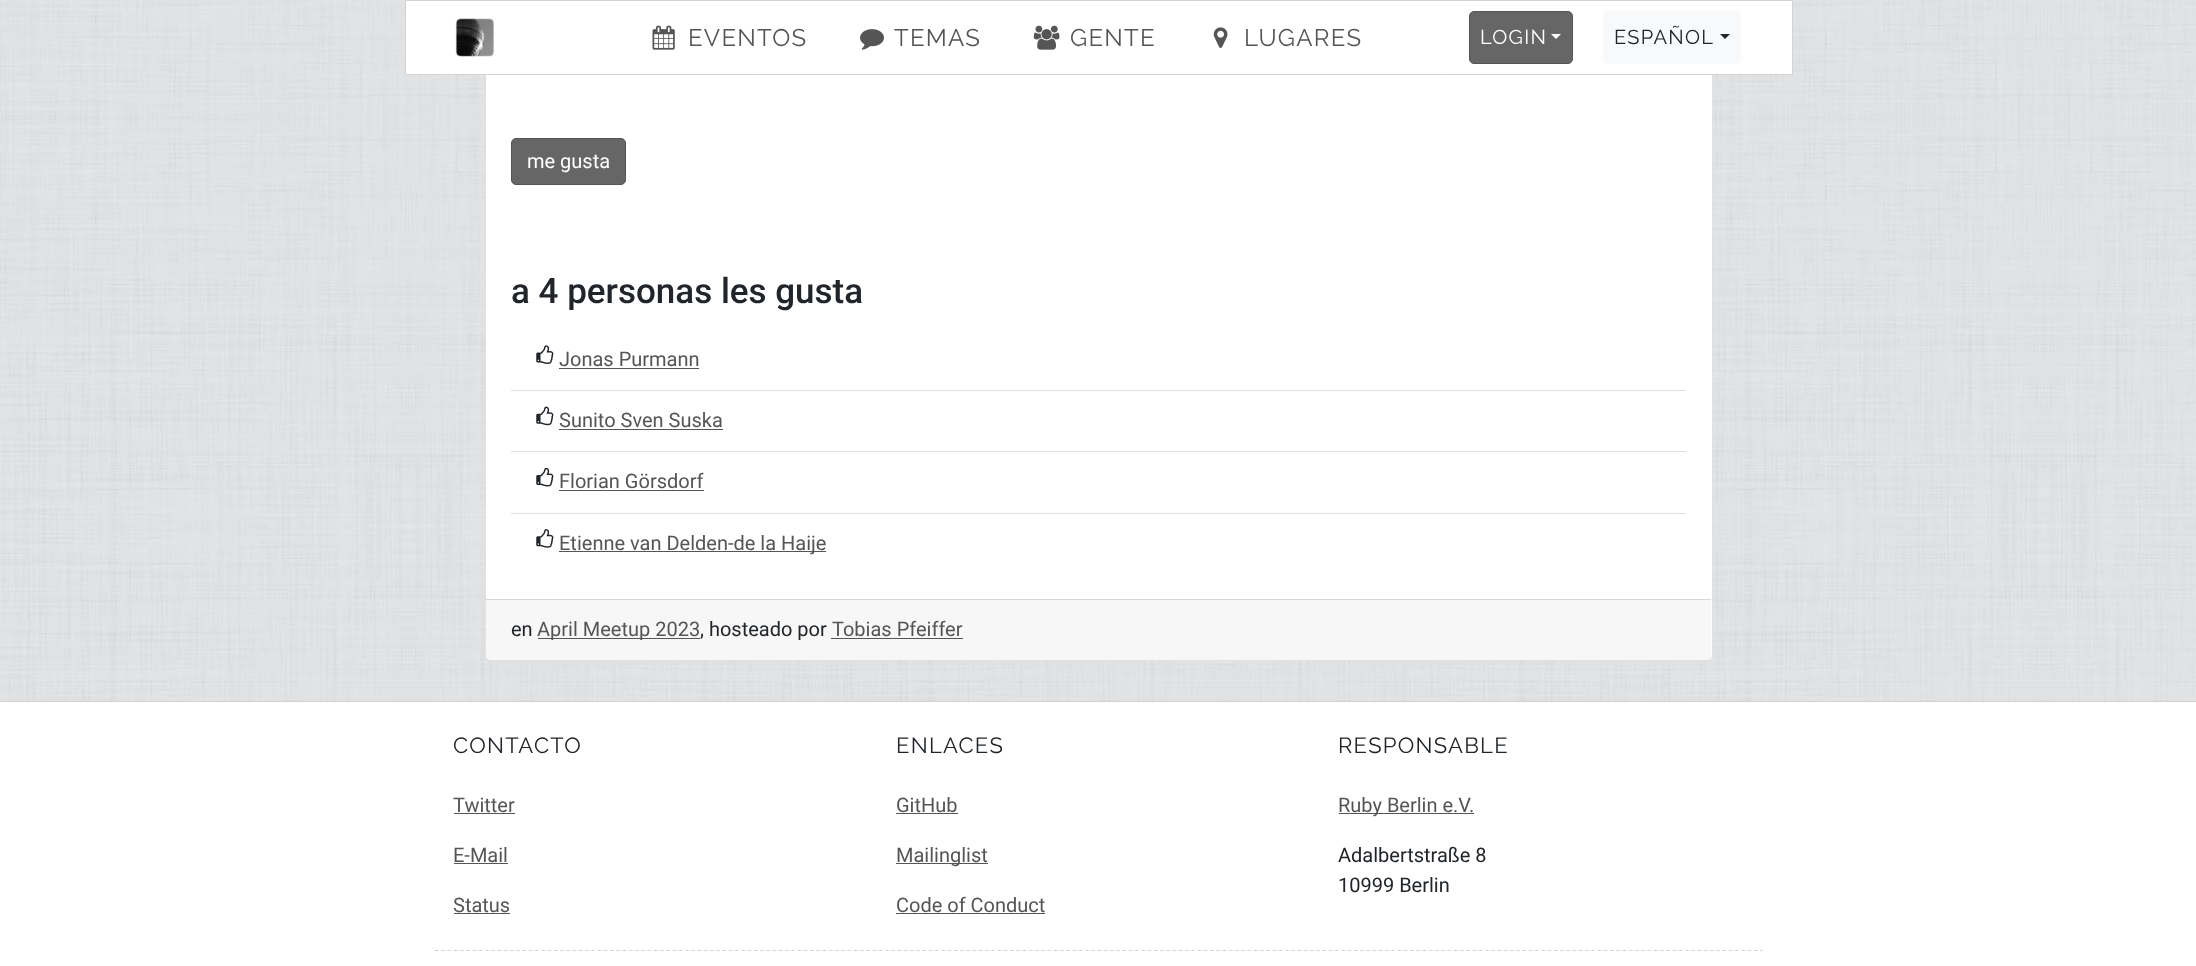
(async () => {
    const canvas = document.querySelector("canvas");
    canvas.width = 2196;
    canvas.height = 966;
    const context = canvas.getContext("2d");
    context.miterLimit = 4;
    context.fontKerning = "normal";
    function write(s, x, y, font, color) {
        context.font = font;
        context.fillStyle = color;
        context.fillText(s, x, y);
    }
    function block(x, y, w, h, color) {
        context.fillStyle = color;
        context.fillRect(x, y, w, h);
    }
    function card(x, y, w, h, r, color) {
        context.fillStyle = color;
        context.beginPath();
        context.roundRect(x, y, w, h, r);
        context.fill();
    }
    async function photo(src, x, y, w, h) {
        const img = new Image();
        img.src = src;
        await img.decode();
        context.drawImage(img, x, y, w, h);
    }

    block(0, 0, 2196, 966, "rgb(255, 255, 255)");
    await photo("media/1.png", 0, 0, 2196, 701);
    card(485, -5, 1228, 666, 5, "rgb(255, 255, 255)");
    context.beginPath();
    context.roundRect(485.5, -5.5, 1227, 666, 4.5);
    context.strokeStyle = "rgba(0, 0, 0, 0.12)";
    context.stroke();
    context.beginPath();
    context.rect(405.5, 0.5, 1387, 74);
    context.fill();
    context.strokeStyle = "rgb(211, 211, 211)";
    context.stroke();
    await photo("media/2.png", 455, 18, 39, 39);
    await photo("media/3.png", 652, 25, 23, 25);
    context.letterSpacing = "1.25px";
    write("EVENTOS", 688, 46, "100 24px Raleway", "rgb(85, 85, 85)");
    await photo("media/4.png", 860, 29, 24, 21);
    write("TEMAS", 894, 46, "100 24px Raleway", "rgb(85, 85, 85)");
    await photo("media/5.png", 1033, 25, 27, 25);
    write("GENTE", 1070, 46, "100 24px Raleway", "rgb(85, 85, 85)");
    await photo("media/6.png", 1213, 27, 15, 21);
    write("LUGARES", 1244, 46, "100 24px Raleway", "rgb(85, 85, 85)");
    context.fillStyle = "rgb(102, 102, 102)";
    context.beginPath();
    context.roundRect(1469.5, 11.5, 103, 52, 4.5);
    context.fill();
    context.strokeStyle = "rgb(85, 85, 85)";
    context.stroke();
    write("LOGIN", 1480, 44, "100 20px Raleway", "rgb(255, 255, 255)");
    context.beginPath();
    context.moveTo(1551, 34);
    context.lineTo(1561, 34);
    context.lineTo(1556, 39);
    context.closePath();
    context.fill();
    card(1603, 11, 138, 53, 5, "rgb(248, 249, 250)");
    write("ESPAÑOL", 1614, 44, "100 20px Raleway", "rgb(33, 37, 41)");
    context.beginPath();
    context.moveTo(1720, 34);
    context.lineTo(1730, 34);
    context.lineTo(1725, 39);
    context.closePath();
    context.fill();
    context.fillStyle = "rgb(102, 102, 102)";
    context.beginPath();
    context.roundRect(511.5, 138.5, 114, 46, 4.5);
    context.fill();
    context.stroke();
    context.letterSpacing = "0px";
    write("me gusta", 527, 168, "20px Roboto", "rgb(255, 255, 255)");
    write("a 4 personas les gusta", 511, 303, "500 35px Roboto", "rgb(33, 37, 41)");
    block(511, 390, 1175, 1, "rgb(223, 223, 223)");
    await photo("media/7.png", 536, 345, 18, 19);
    write("Jonas Purmann", 559, 366, "20px Roboto", "rgb(85, 85, 85)");
    block(559, 368, 140, 1, "rgb(85, 85, 85)");
    block(511, 451, 1175, 1, "rgb(223, 223, 223)");
    await photo("media/8.png", 536, 406, 18, 20);
    write("Sunito Sven Suska", 559, 427, "20px Roboto", "rgb(85, 85, 85)");
    block(559, 429, 164, 1, "rgb(85, 85, 85)");
    block(511, 513, 1175, 1, "rgb(223, 223, 223)");
    await photo("media/9.png", 536, 467, 18, 20);
    write("Florian Görsdorf", 559, 488, "20px Roboto", "rgb(85, 85, 85)");
    block(559, 490, 145, 1, "rgb(85, 85, 85)");
    await photo("media/10.png", 536, 529, 18, 19);
    block(559, 551, 267, 1, "rgb(85, 85, 85)");
    write("Etienne van Delden-de la Haije", 559, 550, "20px Roboto", "rgb(85, 85, 85)");
    block(486, 600, 1225, 60, "rgba(0, 0, 0, 0.03)");
    block(486, 599, 1225, 1, "rgb(216, 216, 216)");
    write("en", 511, 636, "20px Roboto", "rgb(33, 37, 41)");
    block(538, 638, 162, 1, "rgb(85, 85, 85)");
    write("April Meetup 2023", 537, 636, "20px Roboto", "rgb(85, 85, 85)");
    write(", hosteado por", 700, 636, "20px Roboto", "rgb(33, 37, 41)");
    write("Tobias Pfeiffer", 832, 636, "20px Roboto", "rgb(85, 85, 85)");
    block(831, 638, 132, 1, "rgb(85, 85, 85)");
    block(0, 701, 2196, 1, "rgb(211, 211, 211)");
    context.beginPath();
    context.moveTo(435, 950.5);
    context.lineTo(1762.5, 950.5);
    context.strokeStyle = "rgb(211, 211, 211)";
    context.lineWidth = 1.2;
    context.setLineDash([3.75, 2.5]);
    context.stroke();
    context.letterSpacing = "1.25px";
    write("CONTACTO", 453, 753, "100 22px Raleway", "rgb(33, 37, 41)");
    context.letterSpacing = "0px";
    write("Twitter", 453, 812, "20px Roboto", "rgb(85, 85, 85)");
    block(454, 813, 61, 1, "rgb(85, 85, 85)");
    write("E-Mail", 453, 862, "20px Roboto", "rgb(85, 85, 85)");
    block(454, 863, 54, 1, "rgb(85, 85, 85)");
    write("Status", 453, 912, "20px Roboto", "rgb(85, 85, 85)");
    block(454, 913, 56, 1, "rgb(85, 85, 85)");
    context.letterSpacing = "1.25px";
    write("ENLACES", 896, 753, "100 22px Raleway", "rgb(33, 37, 41)");
    context.letterSpacing = "0px";
    write("GitHub", 896, 812, "20px Roboto", "rgb(85, 85, 85)");
    block(896, 813, 62, 1, "rgb(85, 85, 85)");
    block(896, 863, 92, 1, "rgb(85, 85, 85)");
    write("Mailinglist", 896, 862, "20px Roboto", "rgb(85, 85, 85)");
    write("Code of Conduct", 896, 912, "20px Roboto", "rgb(85, 85, 85)");
    block(896, 913, 149, 1, "rgb(85, 85, 85)");
    context.letterSpacing = "1.25px";
    write("RESPONSABLE", 1338, 753, "100 22px Raleway", "rgb(33, 37, 41)");
    block(1339, 813, 135, 1, "rgb(85, 85, 85)");
    context.letterSpacing = "0px";
    write("Ruby Berlin e.V.", 1338, 812, "20px Roboto", "rgb(85, 85, 85)");
    write("Adalbertstraße 8", 1338, 862, "20px Roboto", "rgb(33, 37, 41)");
    write("10999 Berlin", 1338, 892, "20px Roboto", "rgb(33, 37, 41)");
})();
